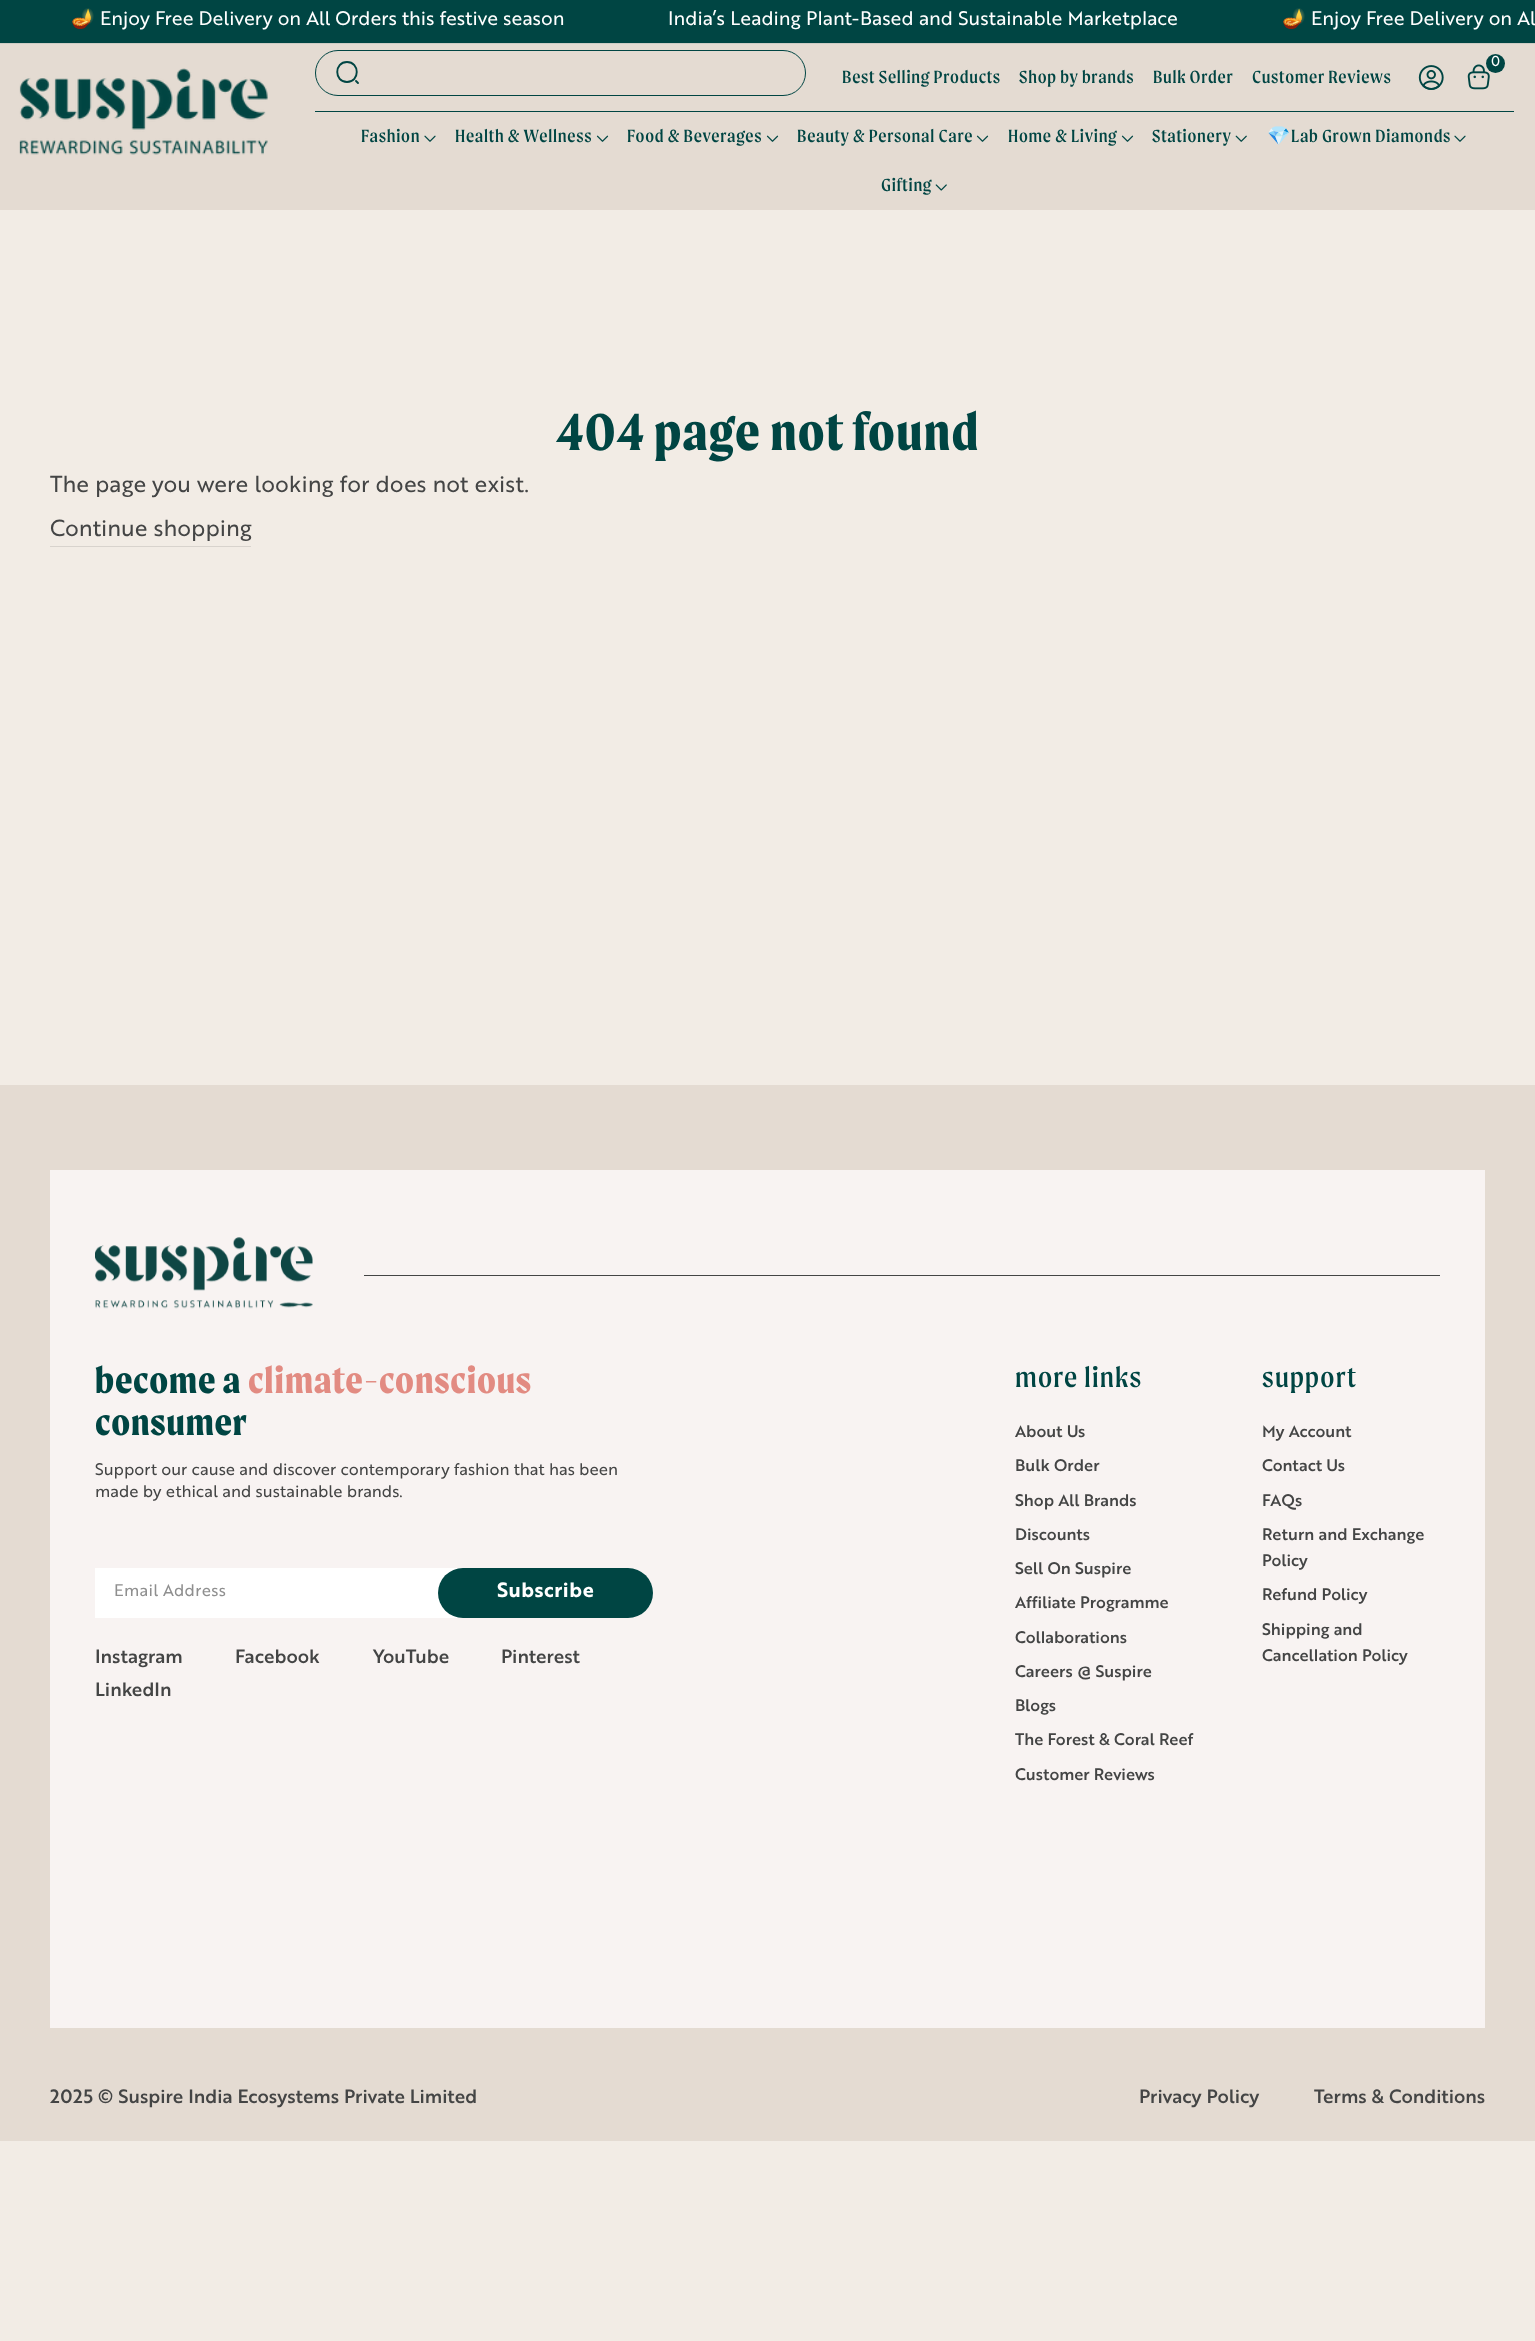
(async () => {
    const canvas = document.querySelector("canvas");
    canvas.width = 1535;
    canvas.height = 2341;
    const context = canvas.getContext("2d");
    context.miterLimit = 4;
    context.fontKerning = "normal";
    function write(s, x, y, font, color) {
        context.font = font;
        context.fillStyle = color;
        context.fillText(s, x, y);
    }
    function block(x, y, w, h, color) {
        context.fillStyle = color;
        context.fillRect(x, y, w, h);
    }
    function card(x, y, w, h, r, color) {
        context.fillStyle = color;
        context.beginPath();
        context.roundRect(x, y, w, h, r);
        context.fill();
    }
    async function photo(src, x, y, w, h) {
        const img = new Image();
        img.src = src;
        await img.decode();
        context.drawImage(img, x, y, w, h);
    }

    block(0, 0, 1535, 2341, "rgb(242, 236, 229)");
    block(0, 0, 1535, 43, "rgb(0, 69, 67)");
    write("🪔", 71, 25, "19.1px Noto Color Emoji", "rgb(255, 255, 255)");
    write("Enjoy Free Delivery on All Orders this festive season", 100, 25, "19.1px 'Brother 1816'", "rgb(255, 255, 255)");
    context.wordSpacing = "0.25px";
    write("India’s Leading Plant-Based and Sustainable Marketplace", 668, 25, "19.1px 'Brother 1816'", "rgb(255, 255, 255)");
    context.wordSpacing = "0px";
    write("🪔", 1282, 25, "19.1px Noto Color Emoji", "rgb(255, 255, 255)");
    write("Enjoy Free Delivery on Al", 1311, 25, "19.1px 'Brother 1816'", "rgb(255, 255, 255)");
    block(0, 44, 1535, 166, "rgb(228, 219, 210)");
    block(0, 43, 1535, 1, "rgb(205, 204, 196)");
    await photo("media/1.png", 19, 68, 249, 87);
    block(315, 111, 1199, 1, "rgb(0, 69, 67)");
    context.beginPath();
    context.roundRect(315.5, 50.5, 490, 45, 22.5);
    context.strokeStyle = "rgb(0, 69, 67)";
    context.stroke();
    context.beginPath();
    context.moveTo(347, 82);
    context.bezierCurveTo(360, 82, 360, 62, 347, 62);
    context.bezierCurveTo(334, 62, 334, 82, 347, 82);
    context.closePath();
    context.moveTo(358, 83);
    context.lineTo(356, 81);
    context.lineWidth = 1.9;
    context.lineCap = "round";
    context.lineJoin = "round";
    context.stroke();
    await photo("media/2.png", 1467, 64, 23, 26);
    context.beginPath();
    context.arc(1495.5, 63.5, 9.5, 0, Math.PI * 2);
    context.fill();
    write("0", 1491, 66, "14px 'Brother 1816'", "rgb(255, 255, 255)");
    await photo("media/3.png", 1418, 65, 26, 25);
    context.letterSpacing = "0.75px";
    write("Best Selling Products", 842, 83, "18.75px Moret", "rgb(0, 69, 67)");
    write("Shop by brands", 1019, 83, "18.75px Moret", "rgb(0, 69, 67)");
    write("Bulk Order", 1153, 83, "18.75px Moret", "rgb(0, 69, 67)");
    write("Customer Reviews", 1252, 83, "18.75px Moret", "rgb(0, 69, 67)");
    write("Fashion", 361, 142, "18.75px Moret", "rgb(0, 69, 67)");
    await photo("media/4.png", 424, 135, 12, 7);
    write("Health & Wellness", 455, 142, "18.75px Moret", "rgb(0, 69, 67)");
    await photo("media/5.png", 596, 135, 13, 7);
    write("Food & Beverages", 627, 142, "18.75px Moret", "rgb(0, 69, 67)");
    await photo("media/5.png", 766, 135, 13, 7);
    write("Beauty & Personal Care", 797, 142, "18.75px Moret", "rgb(0, 69, 67)");
    await photo("media/5.png", 976, 135, 13, 7);
    write("Home & Living", 1008, 142, "18.75px Moret", "rgb(0, 69, 67)");
    await photo("media/5.png", 1121, 135, 13, 7);
    write("Stationery", 1152, 142, "18.75px Moret", "rgb(0, 69, 67)");
    await photo("media/6.png", 1235, 135, 12, 7);
    write("💎", 1267, 142, "18.75px Noto Color Emoji", "rgb(0, 69, 67)");
    write("Lab Grown Diamonds", 1291, 142, "18.75px Moret", "rgb(0, 69, 67)");
    await photo("media/4.png", 1454, 135, 12, 7);
    write("Gifting", 881, 191, "18.75px Moret", "rgb(0, 69, 67)");
    await photo("media/7.png", 935, 184, 12, 7);
    context.letterSpacing = "1.1px";
    write("404 page not found", 556, 450, "bold 55px Moret", "rgb(0, 69, 67)");
    context.letterSpacing = "0px";
    write("The page you were looking for does not exist.", 50, 492, "22.5px 'Brother 1816'", "rgb(68, 69, 69)");
    block(50, 546, 201, 1, "rgb(216, 211, 205)");
    write("Continue shopping", 50, 536, "22.5px 'Brother 1816'", "rgb(68, 69, 69)");
    block(0, 1085, 1535, 1056, "rgb(228, 219, 210)");
    block(50, 1170, 1435, 858, "rgb(248, 243, 242)");
    await photo("media/8.png", 95, 1237, 218, 72);
    block(364, 1275, 1076, 1, "rgb(68, 69, 69)");
    context.letterSpacing = "0.75px";
    write("become a", 95, 1393, "bold 38.75px Moret", "rgb(0, 69, 67)");
    write("climate-conscious", 248, 1393, "bold 38.75px Moret", "rgb(226, 139, 130)");
    write("consumer", 95, 1435, "bold 38.75px Moret", "rgb(0, 69, 67)");
    context.letterSpacing = "0px";
    write("Support our cause and discover contemporary fashion that has been", 95, 1475, "16.25px 'Brother 1816'", "rgb(68, 69, 69)");
    write("made by ethical and sustainable brands.", 95, 1497, "16.25px 'Brother 1816'", "rgb(68, 69, 69)");
    context.fillStyle = "rgb(255, 255, 255)";
    context.beginPath();
    context.roundRect(95, 1568, 558, 50, [0, 25, 25, 0]);
    context.fill();
    context.letterSpacing = "0.3px";
    write("Email Address", 114, 1596, "16.25px 'Brother 1816'", "rgb(143, 143, 143)");
    card(438, 1568, 215, 50, 25, "rgb(0, 69, 67)");
    context.letterSpacing = "0.5px";
    write("Subscribe", 497, 1597, "bold 20px 'Brother 1816'", "rgb(255, 255, 255)");
    context.letterSpacing = "0px";
    write("Instagram", 95, 1663, "500 18.75px 'Brother 1816'", "rgb(68, 69, 69)");
    write("Facebook", 235, 1663, "500 18.75px 'Brother 1816'", "rgb(68, 69, 69)");
    write("YouTube", 373, 1663, "500 18.75px 'Brother 1816'", "rgb(68, 69, 69)");
    write("Pinterest", 501, 1663, "500 18.75px 'Brother 1816'", "rgb(68, 69, 69)");
    write("LinkedIn", 95, 1696, "500 18.75px 'Brother 1816'", "rgb(68, 69, 69)");
    context.letterSpacing = "1.25px";
    write("more links", 1015, 1387, "30px Moret", "rgb(0, 69, 67)");
    context.letterSpacing = "0px";
    write("About Us", 1015, 1437, "500 16.25px 'Brother 1816'", "rgb(68, 69, 69)");
    write("Bulk Order", 1015, 1471, "500 16.25px 'Brother 1816'", "rgb(68, 69, 69)");
    write("Shop All Brands", 1015, 1506, "500 16.25px 'Brother 1816'", "rgb(68, 69, 69)");
    write("Discounts", 1015, 1540, "500 16.25px 'Brother 1816'", "rgb(68, 69, 69)");
    write("Sell On Suspire", 1015, 1574, "500 16.25px 'Brother 1816'", "rgb(68, 69, 69)");
    write("Affiliate Programme", 1015, 1608, "500 16.25px 'Brother 1816'", "rgb(68, 69, 69)");
    write("Collaborations", 1015, 1643, "500 16.25px 'Brother 1816'", "rgb(68, 69, 69)");
    write("Careers @ Suspire", 1015, 1677, "500 16.25px 'Brother 1816'", "rgb(68, 69, 69)");
    write("Blogs", 1015, 1711, "500 16.25px 'Brother 1816'", "rgb(68, 69, 69)");
    write("The Forest & Coral Reef", 1015, 1745, "500 16.25px 'Brother 1816'", "rgb(68, 69, 69)");
    write("Customer Reviews", 1015, 1780, "500 16.25px 'Brother 1816'", "rgb(68, 69, 69)");
    context.letterSpacing = "1.25px";
    write("support", 1262, 1387, "30px Moret", "rgb(0, 69, 67)");
    context.letterSpacing = "0px";
    write("My Account", 1262, 1437, "500 16.25px 'Brother 1816'", "rgb(68, 69, 69)");
    write("Contact Us", 1262, 1471, "500 16.25px 'Brother 1816'", "rgb(68, 69, 69)");
    write("FAQs", 1262, 1506, "500 16.25px 'Brother 1816'", "rgb(68, 69, 69)");
    write("Return and Exchange", 1262, 1540, "500 16.25px 'Brother 1816'", "rgb(68, 69, 69)");
    write("Policy", 1262, 1566, "500 16.25px 'Brother 1816'", "rgb(68, 69, 69)");
    write("Refund Policy", 1262, 1600, "500 16.25px 'Brother 1816'", "rgb(68, 69, 69)");
    write("Shipping and", 1262, 1635, "500 16.25px 'Brother 1816'", "rgb(68, 69, 69)");
    write("Cancellation Policy", 1262, 1661, "500 16.25px 'Brother 1816'", "rgb(68, 69, 69)");
    write("2025 © Suspire India Ecosystems Private Limited", 50, 2103, "500 18.75px 'Brother 1816'", "rgb(68, 69, 69)");
    write("Privacy Policy", 1139, 2103, "500 18.75px 'Brother 1816'", "rgb(68, 69, 69)");
    write("Terms & Conditions", 1314, 2103, "500 18.75px 'Brother 1816'", "rgb(68, 69, 69)");
})();
